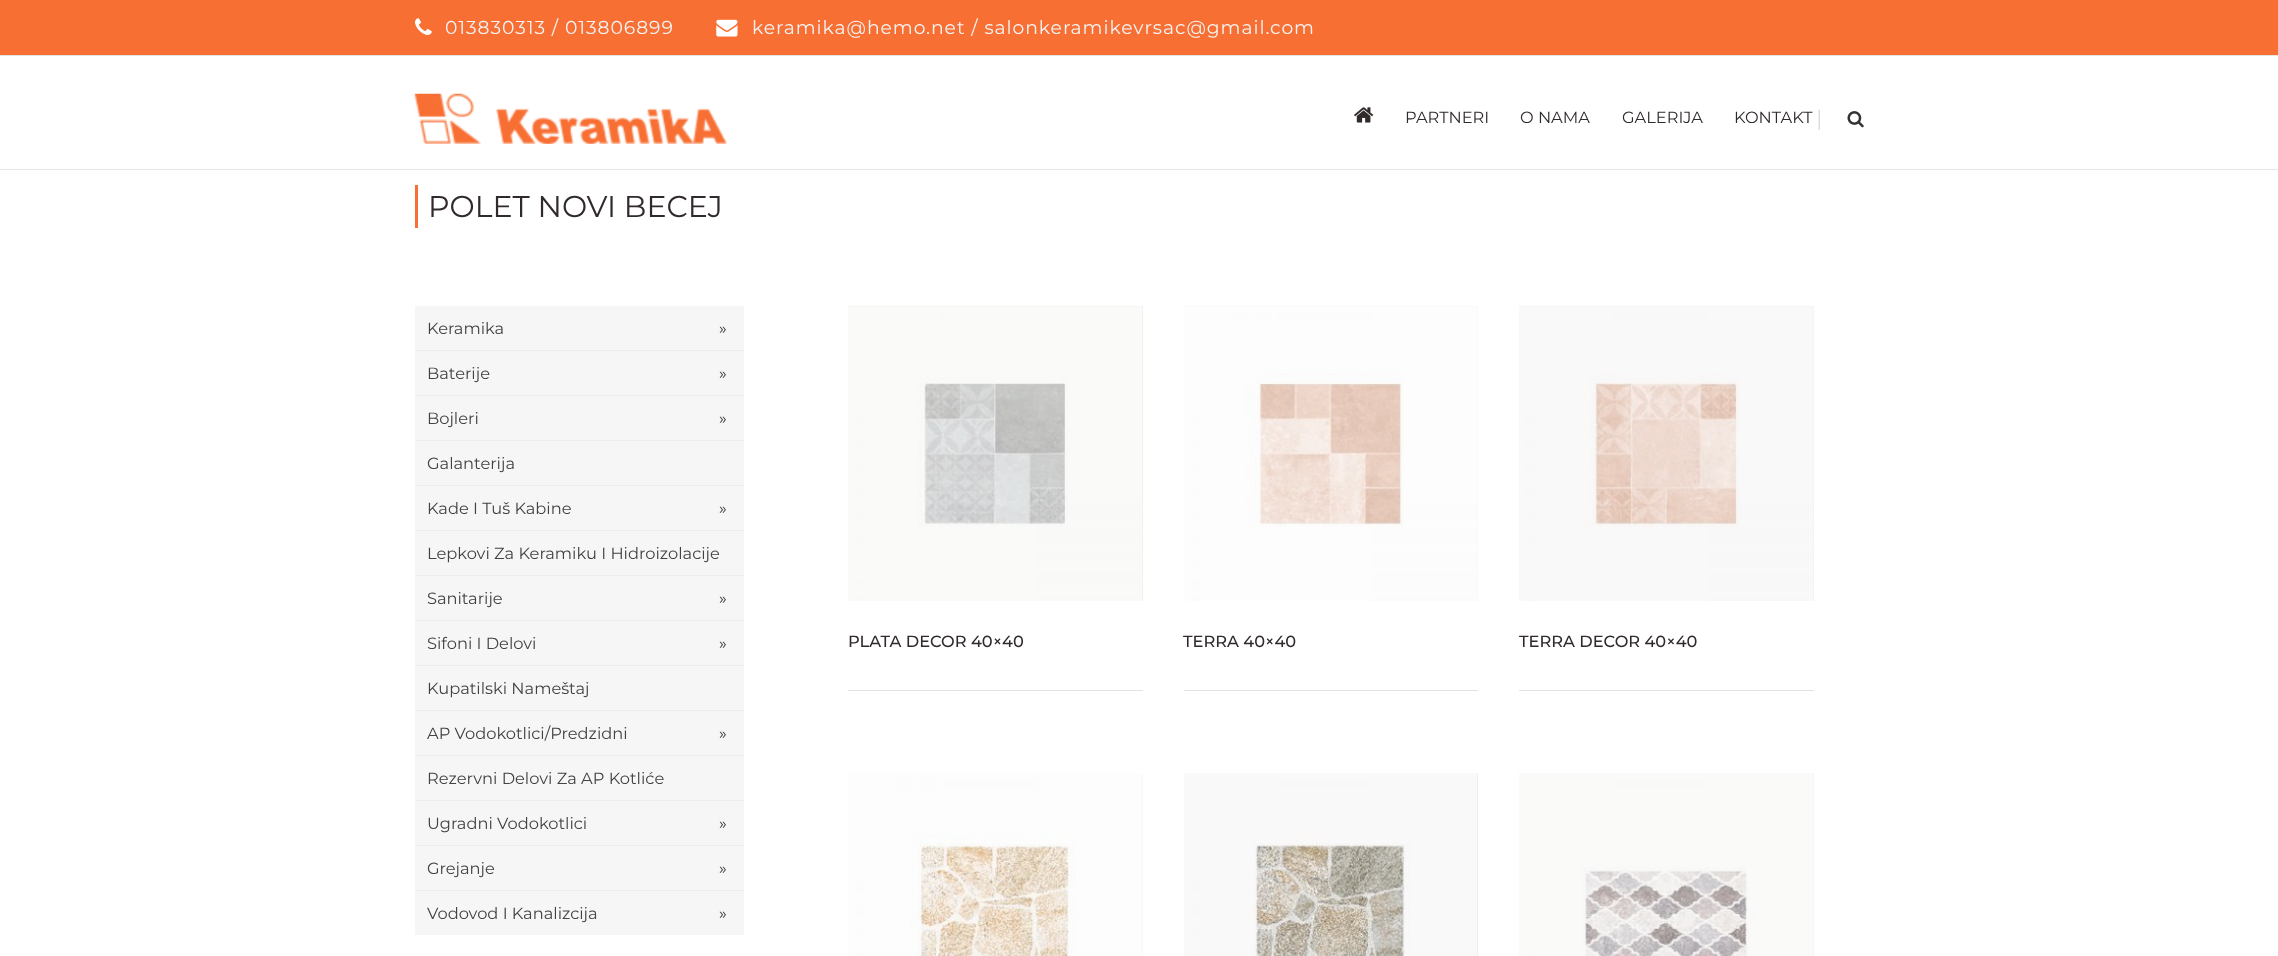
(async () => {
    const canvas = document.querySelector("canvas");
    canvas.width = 2278;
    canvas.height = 956;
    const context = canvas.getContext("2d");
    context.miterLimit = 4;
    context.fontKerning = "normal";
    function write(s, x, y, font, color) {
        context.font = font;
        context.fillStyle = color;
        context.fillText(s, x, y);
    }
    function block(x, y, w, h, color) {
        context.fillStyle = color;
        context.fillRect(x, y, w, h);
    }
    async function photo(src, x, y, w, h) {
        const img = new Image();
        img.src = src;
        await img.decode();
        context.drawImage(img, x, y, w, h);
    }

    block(0, 0, 2278, 956, "rgb(255, 255, 255)");
    block(0, 0, 2278, 55, "rgb(247, 111, 51)");
    block(0, 55, 2278, 1, "rgb(229, 229, 229)");
    await photo("media/1.png", 415, 18, 17, 17);
    context.letterSpacing = "0.95px";
    write("013830313 / 013806899", 445, 34, "18.75px Montserrat", "rgb(244, 244, 244)");
    await photo("media/2.png", 716, 19, 22, 18);
    write("keramika@hemo.net / salonkeramikevrsac@gmail.com", 752, 34, "18.75px Montserrat", "rgb(244, 244, 244)");
    block(0, 169, 2278, 1, "rgb(229, 229, 229)");
    await photo("media/3.png", 414, 93, 313, 51);
    await photo("media/4.png", 1354, 107, 20, 16);
    context.letterSpacing = "0px";
    write("PARTNERI", 1405, 123, "16.25px Montserrat", "rgb(48, 42, 42)");
    write("O NAMA", 1520, 123, "16.25px Montserrat", "rgb(48, 42, 42)");
    write("GALERIJA", 1622, 123, "16.25px Montserrat", "rgb(48, 42, 42)");
    write("KONTAKT", 1734, 123, "16.25px Montserrat", "rgb(48, 42, 42)");
    write("|", 1817, 125, "22px Liberation Serif", "rgb(210, 210, 210)");
    await photo("media/5.png", 1847, 111, 17, 17);
    block(415, 185, 3, 43, "rgb(247, 111, 51)");
    write("POLET NOVI BECEJ", 428, 217, "30px Montserrat", "rgb(48, 42, 42)");
    block(415, 306, 329, 629, "rgb(246, 246, 246)");
    block(415, 350, 329, 1, "rgb(236, 236, 236)");
    write("Keramika", 427, 334, "16.25px Montserrat", "rgb(66, 66, 66)");
    write("»", 719, 334, "16.25px Montserrat", "rgb(51, 51, 51)");
    block(415, 395, 329, 1, "rgb(236, 236, 236)");
    write("Baterije", 427, 379, "16.25px Montserrat", "rgb(66, 66, 66)");
    write("»", 719, 379, "16.25px Montserrat", "rgb(51, 51, 51)");
    block(415, 440, 329, 1, "rgb(236, 236, 236)");
    write("Bojleri", 427, 424, "16.25px Montserrat", "rgb(66, 66, 66)");
    write("»", 719, 424, "16.25px Montserrat", "rgb(51, 51, 51)");
    block(415, 485, 329, 1, "rgb(236, 236, 236)");
    write("Galanterija", 427, 469, "16.25px Montserrat", "rgb(66, 66, 66)");
    block(415, 530, 329, 1, "rgb(236, 236, 236)");
    write("Kade I Tuš Kabine", 427, 514, "16.25px Montserrat", "rgb(66, 66, 66)");
    write("»", 719, 514, "16.25px Montserrat", "rgb(51, 51, 51)");
    block(415, 575, 329, 1, "rgb(236, 236, 236)");
    write("Lepkovi Za Keramiku I Hidroizolacije", 427, 559, "16.25px Montserrat", "rgb(66, 66, 66)");
    block(415, 620, 329, 1, "rgb(236, 236, 236)");
    write("Sanitarije", 427, 604, "16.25px Montserrat", "rgb(66, 66, 66)");
    write("»", 719, 604, "16.25px Montserrat", "rgb(51, 51, 51)");
    block(415, 665, 329, 1, "rgb(236, 236, 236)");
    write("Sifoni I Delovi", 427, 649, "16.25px Montserrat", "rgb(66, 66, 66)");
    write("»", 719, 649, "16.25px Montserrat", "rgb(51, 51, 51)");
    block(415, 710, 329, 1, "rgb(236, 236, 236)");
    write("Kupatilski Nameštaj", 427, 694, "16.25px Montserrat", "rgb(66, 66, 66)");
    block(415, 755, 329, 1, "rgb(236, 236, 236)");
    write("AP Vodokotlici/Predzidni", 427, 739, "16.25px Montserrat", "rgb(66, 66, 66)");
    write("»", 719, 739, "16.25px Montserrat", "rgb(51, 51, 51)");
    block(415, 800, 329, 1, "rgb(236, 236, 236)");
    write("Rezervni Delovi Za AP Kotliće", 427, 784, "16.25px Montserrat", "rgb(66, 66, 66)");
    block(415, 845, 329, 1, "rgb(236, 236, 236)");
    write("Ugradni Vodokotlici", 427, 829, "16.25px Montserrat", "rgb(66, 66, 66)");
    write("»", 719, 829, "16.25px Montserrat", "rgb(51, 51, 51)");
    block(415, 890, 329, 1, "rgb(236, 236, 236)");
    write("Grejanje", 427, 874, "16.25px Montserrat", "rgb(66, 66, 66)");
    write("»", 719, 874, "16.25px Montserrat", "rgb(51, 51, 51)");
    write("Vodovod I Kanalizcija", 427, 919, "16.25px Montserrat", "rgb(66, 66, 66)");
    write("»", 719, 919, "16.25px Montserrat", "rgb(51, 51, 51)");
    block(848, 306, 295, 295, "rgb(242, 240, 237)");
    await photo("media/6.png", 848, 306, 294, 295);
    block(848, 690, 295, 1, "rgb(227, 227, 227)");
    write("PLATA DECOR 40×40", 848, 647, "500 16.25px Montserrat", "rgb(48, 42, 42)");
    block(1184, 306, 294, 295, "rgb(248, 248, 248)");
    await photo("media/7.png", 1184, 307, 293, 294);
    block(1184, 690, 294, 1, "rgb(227, 227, 227)");
    write("TERRA 40×40", 1183, 647, "500 16.25px Montserrat", "rgb(48, 42, 42)");
    block(1519, 306, 295, 295, "rgb(242, 237, 237)");
    await photo("media/8.png", 1519, 306, 295, 295);
    block(1519, 690, 295, 1, "rgb(227, 227, 227)");
    write("TERRA DECOR 40×40", 1519, 647, "500 16.25px Montserrat", "rgb(48, 42, 42)");
    block(848, 773, 295, 183, "rgb(248, 248, 248)");
    await photo("media/9.png", 848, 773, 294, 183);
    block(1184, 773, 294, 183, "rgb(242, 237, 237)");
    await photo("media/10.png", 1184, 773, 293, 183);
    block(1519, 773, 295, 183, "rgb(242, 240, 237)");
    await photo("media/11.png", 1519, 773, 295, 183);
})();
